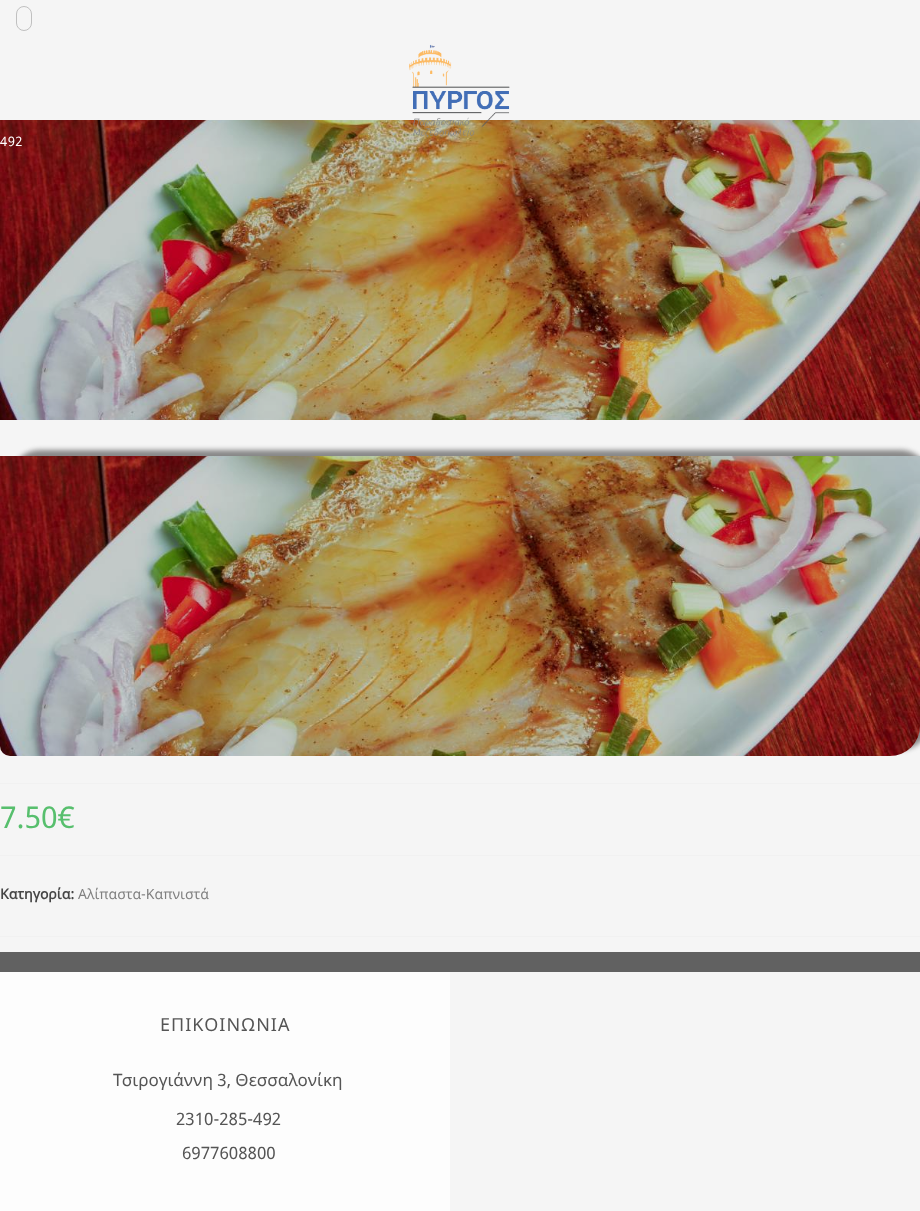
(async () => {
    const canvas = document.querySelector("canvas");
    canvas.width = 920;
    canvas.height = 1211;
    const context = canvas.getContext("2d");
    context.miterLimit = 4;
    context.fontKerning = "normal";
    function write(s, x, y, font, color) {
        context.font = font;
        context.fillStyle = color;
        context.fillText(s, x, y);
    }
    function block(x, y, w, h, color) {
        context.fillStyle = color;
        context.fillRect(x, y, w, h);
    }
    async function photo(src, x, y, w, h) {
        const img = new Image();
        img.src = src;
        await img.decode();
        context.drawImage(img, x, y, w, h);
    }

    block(0, 0, 920, 1211, "rgb(245, 245, 245)");
    await photo("media/2.png", 0, 120, 920, 300);
    await photo("media/1.png", 409, 44, 101, 94);
    context.letterSpacing = "0.5px";
    write("492", 0, 146, "13px Noto Sans", "rgb(255, 255, 255)");
    context.beginPath();
    context.roundRect(16.5, 6.5, 15, 24, 7.5);
    context.strokeStyle = "rgb(192, 192, 192)";
    context.stroke();
    context.fillStyle = "rgb(136, 136, 136)";
    context.filter = "blur(2.5px)";
    context.beginPath();
    context.roundRect(10, 450, 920, 300, 30);
    context.fill();
    context.filter = "none";
    await photo("media/3.png", 0, 456, 920, 300);
    block(0, 783, 920, 1, "rgb(241, 241, 241)");
    block(0, 855, 920, 1, "rgb(241, 241, 241)");
    context.letterSpacing = "0px";
    write("7.50€", 0, 828, "30px Noto Sans", "rgb(87, 191, 109)");
    block(0, 936, 920, 1, "rgb(241, 241, 241)");
    write("Κατηγορία:", 0, 899, "bold 14px Noto Sans", "rgb(70, 70, 70)");
    write("Αλίπαστα-Καπνιστά", 78, 899, "14px Noto Sans", "rgb(128, 128, 128)");
    block(0, 952, 920, 20, "rgb(97, 97, 97)");
    block(0, 972, 450, 239, "rgb(253, 253, 253)");
    context.letterSpacing = "1px";
    write("ΕΠΙΚΟΙΝΩΝΙΑ", 160, 1031, "18px Noto Sans", "rgb(85, 85, 85)");
    context.letterSpacing = "0px";
    write("Τσιρογιάννη 3, Θεσσαλονίκη", 113, 1086, "17px Noto Sans", "rgb(85, 85, 85)");
    write("2310-285-492", 176, 1125, "17px Noto Sans", "rgb(85, 85, 85)");
    write("6977608800", 182, 1159, "17px Noto Sans", "rgb(85, 85, 85)");
})();
